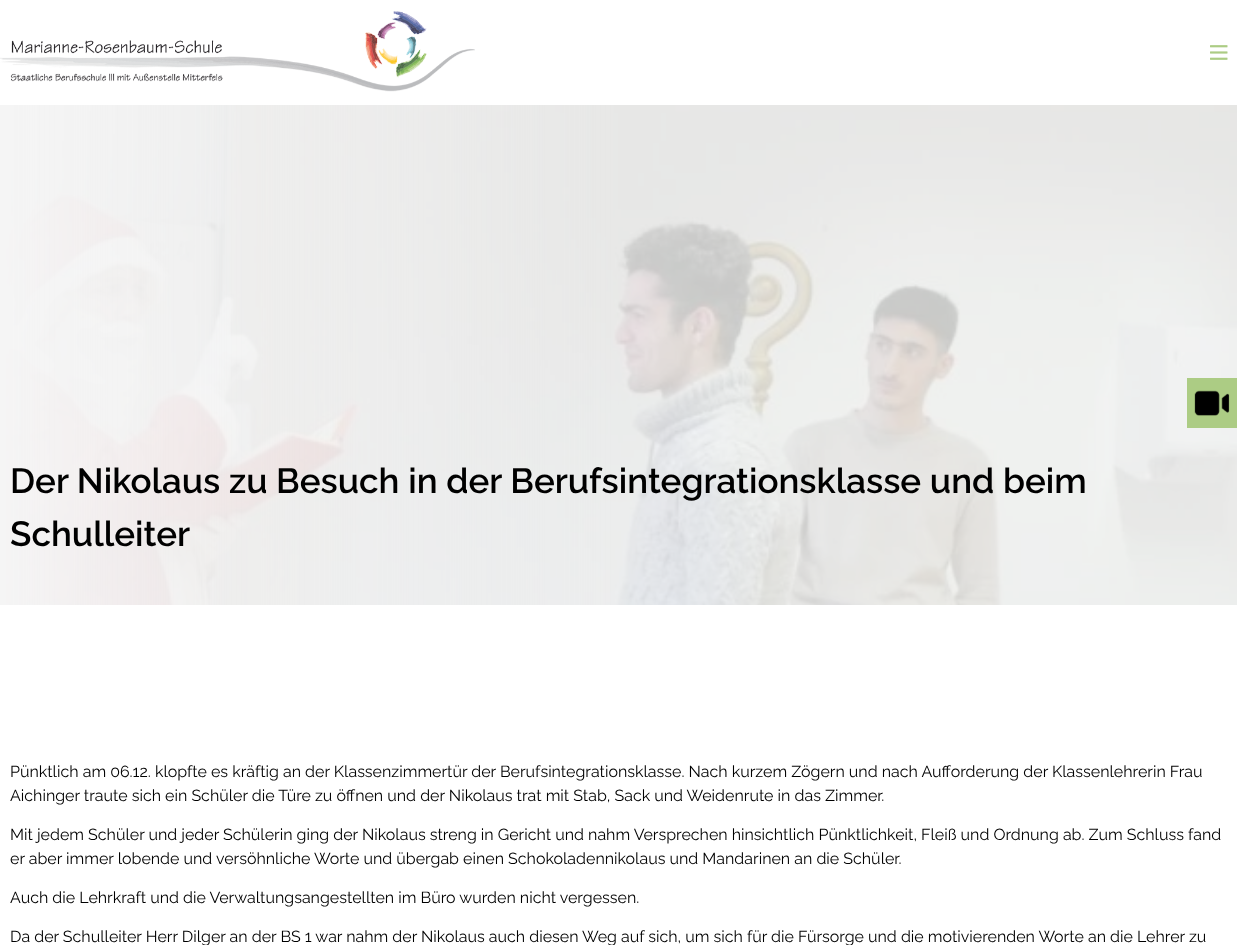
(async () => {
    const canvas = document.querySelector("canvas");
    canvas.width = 1237;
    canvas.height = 945;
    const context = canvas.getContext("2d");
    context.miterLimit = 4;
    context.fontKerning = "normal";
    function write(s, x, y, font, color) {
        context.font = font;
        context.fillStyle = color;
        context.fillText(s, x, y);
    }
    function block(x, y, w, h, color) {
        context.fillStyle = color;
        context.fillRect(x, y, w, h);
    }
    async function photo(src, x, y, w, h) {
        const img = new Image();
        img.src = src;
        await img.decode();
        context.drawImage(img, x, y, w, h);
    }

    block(0, 0, 1237, 945, "rgb(255, 255, 255)");
    await photo("media/1.png", 0, 11, 475, 81);
    await photo("media/2.png", 1210, 45, 18, 15);
    await photo("media/4.png", 0, 105, 1237, 500);
    block(1187, 378, 50, 50, "rgb(172, 204, 132)");
    await photo("media/3.png", 1194, 390, 36, 26);
    write("Der Nikolaus zu Besuch in der Berufsintegrationsklasse und beim", 10, 493, "100 35px 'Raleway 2'", "rgb(0, 0, 0)");
    write("Schulleiter", 10, 546, "100 35px 'Raleway 2'", "rgb(0, 0, 0)");
    write("Pünktlich am 06.12. klopfte es kräftig an der Klassenzimmertür der Berufsintegrationsklasse. Nach kurzem Zögern und nach Aufforderung der Klassenlehrerin Frau", 10, 777, "100 16px Raleway", "rgb(0, 0, 0)");
    write("Aichinger traute sich ein Schüler die Türe zu öffnen und der Nikolaus trat mit Stab, Sack und Weidenrute in das Zimmer.", 10, 801, "100 16px Raleway", "rgb(0, 0, 0)");
    write("Mit jedem Schüler und jeder Schülerin ging der Nikolaus streng in Gericht und nahm Versprechen hinsichtlich Pünktlichkeit, Fleiß und Ordnung ab. Zum Schluss fand", 10, 840, "100 16px Raleway", "rgb(0, 0, 0)");
    write("er aber immer lobende und versöhnliche Worte und übergab einen Schokoladennikolaus und Mandarinen an die Schüler.", 10, 864, "100 16px Raleway", "rgb(0, 0, 0)");
    write("Auch die Lehrkraft und die Verwaltungsangestellten im Büro wurden nicht vergessen.", 10, 903, "100 16px Raleway", "rgb(0, 0, 0)");
    write("Da der Schulleiter Herr Dilger an der BS 1 war nahm der Nikolaus auch diesen Weg auf sich, um sich für die Fürsorge und die motivierenden Worte an die Lehrer zu", 10, 942, "100 16px Raleway", "rgb(0, 0, 0)");
})();
